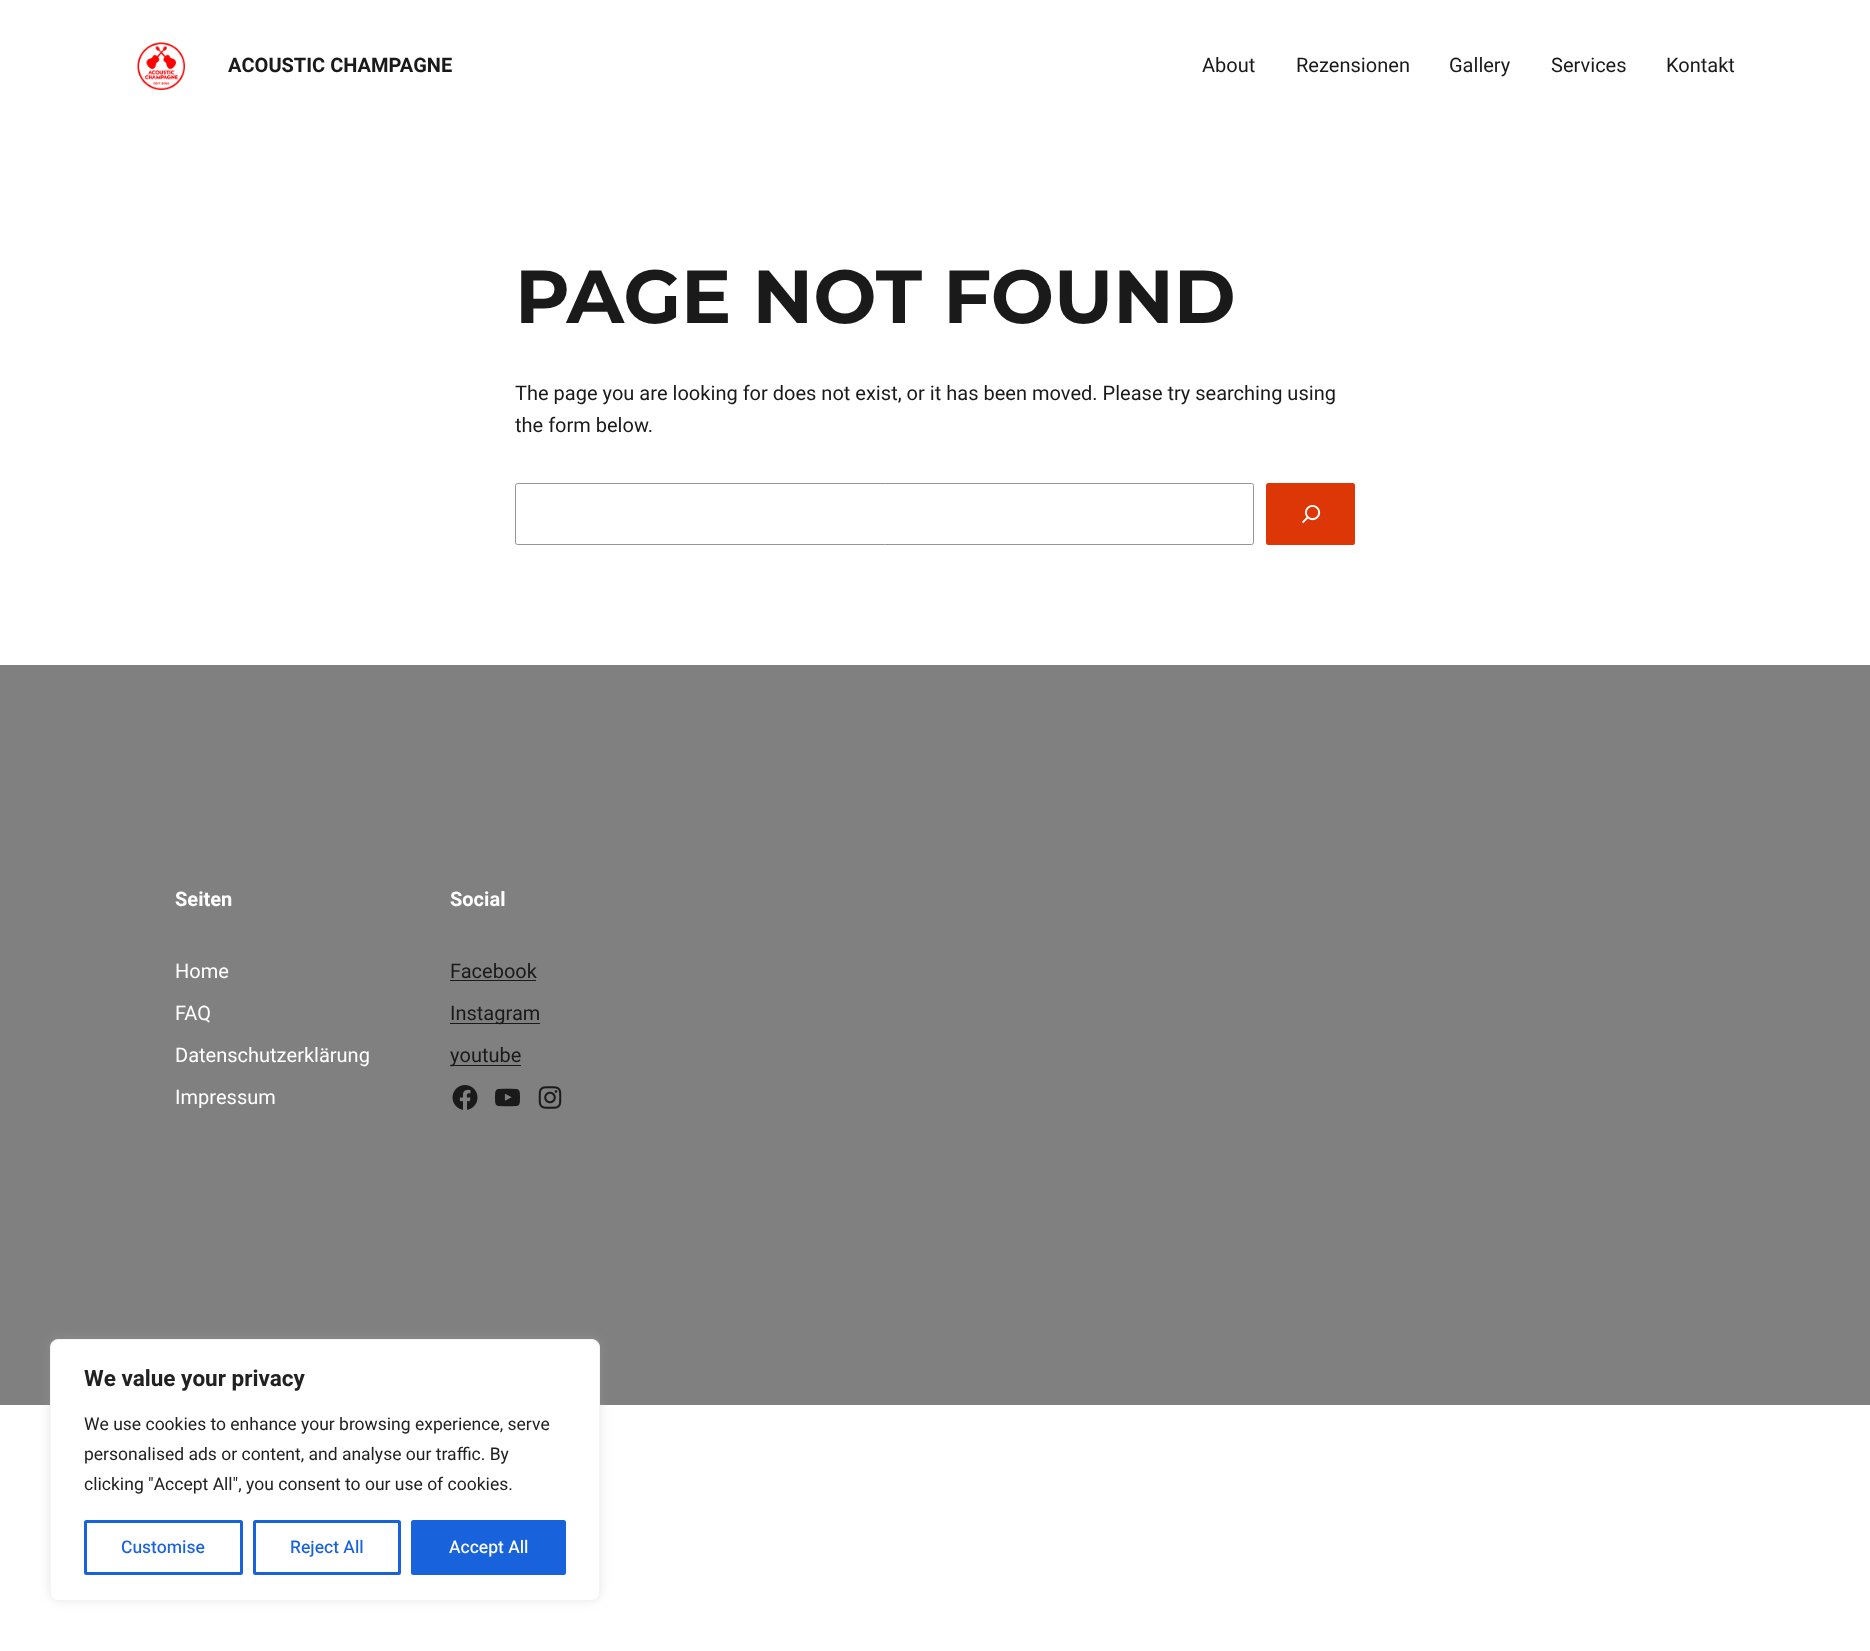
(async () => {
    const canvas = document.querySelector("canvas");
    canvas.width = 1870;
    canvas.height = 1651;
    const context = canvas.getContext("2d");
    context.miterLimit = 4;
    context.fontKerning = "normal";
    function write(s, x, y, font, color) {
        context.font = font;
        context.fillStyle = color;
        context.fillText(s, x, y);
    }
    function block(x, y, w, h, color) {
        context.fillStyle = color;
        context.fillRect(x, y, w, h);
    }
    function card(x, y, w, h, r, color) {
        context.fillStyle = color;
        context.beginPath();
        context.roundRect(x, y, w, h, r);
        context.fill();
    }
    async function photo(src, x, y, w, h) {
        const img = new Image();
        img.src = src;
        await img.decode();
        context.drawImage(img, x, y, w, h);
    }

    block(0, 0, 1870, 1651, "rgb(255, 255, 255)");
    await photo("media/1.png", 137, 42, 48, 48);
    write("ACOUSTIC CHAMPAGNE", 228, 72, "bold 20px Heebo", "rgb(26, 26, 26)");
    write("About", 1202, 72, "20px Heebo", "rgb(26, 26, 26)");
    write("Rezensionen", 1296, 72, "20px Heebo", "rgb(26, 26, 26)");
    write("Gallery", 1449, 72, "20px Heebo", "rgb(26, 26, 26)");
    write("Services", 1551, 72, "20px Heebo", "rgb(26, 26, 26)");
    write("Kontakt", 1666, 72, "20px Heebo", "rgb(26, 26, 26)");
    write("PAGE NOT FOUND", 515, 323, "bold 75px Montserrat", "rgb(26, 26, 26)");
    write("The page you are looking for does not exist, or it has been moved. Please try searching using", 515, 400, "20px Heebo", "rgb(26, 26, 26)");
    write("the form below.", 515, 432, "20px Heebo", "rgb(26, 26, 26)");
    context.beginPath();
    context.roundRect(515.5, 483.5, 738, 61, 2);
    context.strokeStyle = "rgb(148, 148, 148)";
    context.stroke();
    card(1266, 483, 89, 62, 2.5, "rgb(222, 55, 7)");
    await photo("media/2.png", 1302, 505, 19, 19);
    block(0, 665, 1870, 740, "rgb(128, 128, 128)");
    write("Seiten", 175, 906, "bold 20px Heebo", "rgb(255, 255, 255)");
    write("Home", 175, 978, "20px Heebo", "rgb(255, 255, 255)");
    write("FAQ", 175, 1020, "20px Heebo", "rgb(255, 255, 255)");
    write("Datenschutzerklärung", 175, 1062, "20px Heebo", "rgb(255, 255, 255)");
    write("Impressum", 175, 1104, "20px Heebo", "rgb(255, 255, 255)");
    write("Social", 450, 906, "bold 20px Heebo", "rgb(255, 255, 255)");
    write("Facebook", 450, 978, "20px Heebo", "rgb(26, 26, 26)");
    block(450, 980, 86, 1, "rgb(26, 26, 26)");
    block(450, 1023, 90, 1, "rgb(26, 26, 26)");
    write("Instagram", 450, 1020, "20px Heebo", "rgb(26, 26, 26)");
    block(450, 1065, 71, 1, "rgb(26, 26, 26)");
    write("youtube", 450, 1062, "20px Heebo", "rgb(26, 26, 26)");
    await photo("media/3.png", 452, 1085, 26, 25);
    await photo("media/4.png", 495, 1088, 25, 19);
    await photo("media/5.png", 538, 1086, 24, 23);
    context.fillStyle = "rgba(172, 171, 171, 0.3)";
    context.filter = "blur(6px)";
    context.beginPath();
    context.roundRect(50, 1338, 550, 262, 8);
    context.fill();
    context.filter = "none";
    context.fillStyle = "rgb(255, 255, 255)";
    context.beginPath();
    context.roundRect(50.5, 1339.5, 549, 261, 7.5);
    context.fill();
    context.strokeStyle = "rgb(244, 244, 244)";
    context.stroke();
    write("We value your privacy", 84, 1386, "bold 22.5px Heebo", "rgb(33, 33, 33)");
    write("We use cookies to enhance your browsing experience, serve", 84, 1430, "17.5px Heebo", "rgb(33, 33, 33)");
    write("personalised ads or content, and analyse our traffic. By", 84, 1460, "17.5px Heebo", "rgb(33, 33, 33)");
    write("clicking \"Accept All\", you consent to our use of cookies.", 84, 1490, "17.5px Heebo", "rgb(33, 33, 33)");
    context.beginPath();
    context.roundRect(85.5, 1521.5, 156, 52, 1);
    context.strokeStyle = "rgb(24, 99, 220)";
    context.lineWidth = 3;
    context.stroke();
    write("Customise", 121, 1553, "500 17.5px Heebo", "rgb(24, 99, 220)");
    context.beginPath();
    context.roundRect(254.5, 1521.5, 145, 52, 1);
    context.stroke();
    write("Reject All", 290, 1553, "500 17.5px Heebo", "rgb(24, 99, 220)");
    context.beginPath();
    context.roundRect(412.5, 1521.5, 152, 52, 1);
    context.fill();
    context.stroke();
    write("Accept All", 449, 1553, "500 17.5px Heebo", "rgb(255, 255, 255)");
})();
